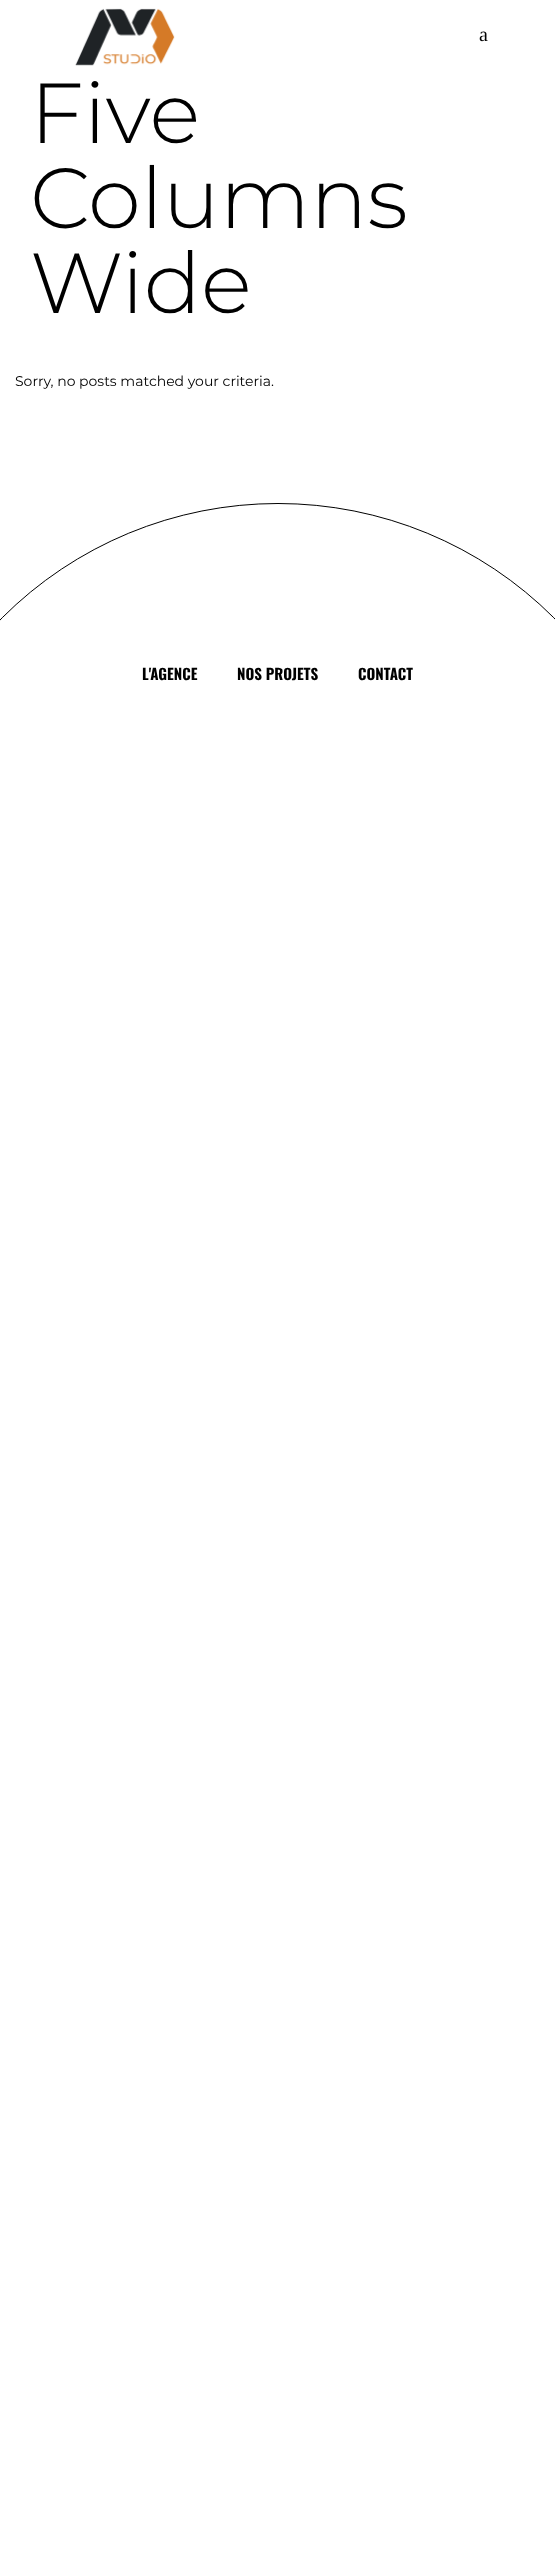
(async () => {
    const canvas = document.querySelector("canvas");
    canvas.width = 555;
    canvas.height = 2573;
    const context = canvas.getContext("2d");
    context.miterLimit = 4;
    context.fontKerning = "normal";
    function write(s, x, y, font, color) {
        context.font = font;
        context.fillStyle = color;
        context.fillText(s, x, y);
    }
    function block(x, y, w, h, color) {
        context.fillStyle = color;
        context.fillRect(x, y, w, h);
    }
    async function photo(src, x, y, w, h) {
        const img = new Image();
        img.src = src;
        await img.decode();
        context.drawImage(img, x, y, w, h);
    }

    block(0, 0, 555, 2573, "rgb(255, 255, 255)");
    await photo("media/1.png", 75, 8, 100, 58);
    write("a", 479, 41, "20px Liberation Serif", "rgb(0, 0, 0)");
    write("Five", 30, 143, "300 85px Montserrat", "rgb(0, 0, 0)");
    write("Columns", 30, 228, "300 85px Montserrat", "rgb(0, 0, 0)");
    write("Wide", 30, 313, "300 85px Montserrat", "rgb(0, 0, 0)");
    write("Sorry, no posts matched your criteria.", 15, 386, "14px Montserrat", "rgb(0, 0, 0)");
    context.save();
    context.beginPath();
    context.rect(0, 503, 555, 212);
    context.clip();
    context.beginPath();
    context.arc(278, 893.5, 390, 0, Math.PI * 2);
    context.strokeStyle = "rgb(0, 0, 0)";
    context.stroke();
    context.restore();
    write("L'AGENCE", 142, 680, "bold 15px Oswald", "rgb(0, 0, 0)");
    write("NOS PROJETS", 237, 680, "bold 15px Oswald", "rgb(0, 0, 0)");
    write("CONTACT", 358, 680, "bold 15px Oswald", "rgb(0, 0, 0)");
})();
